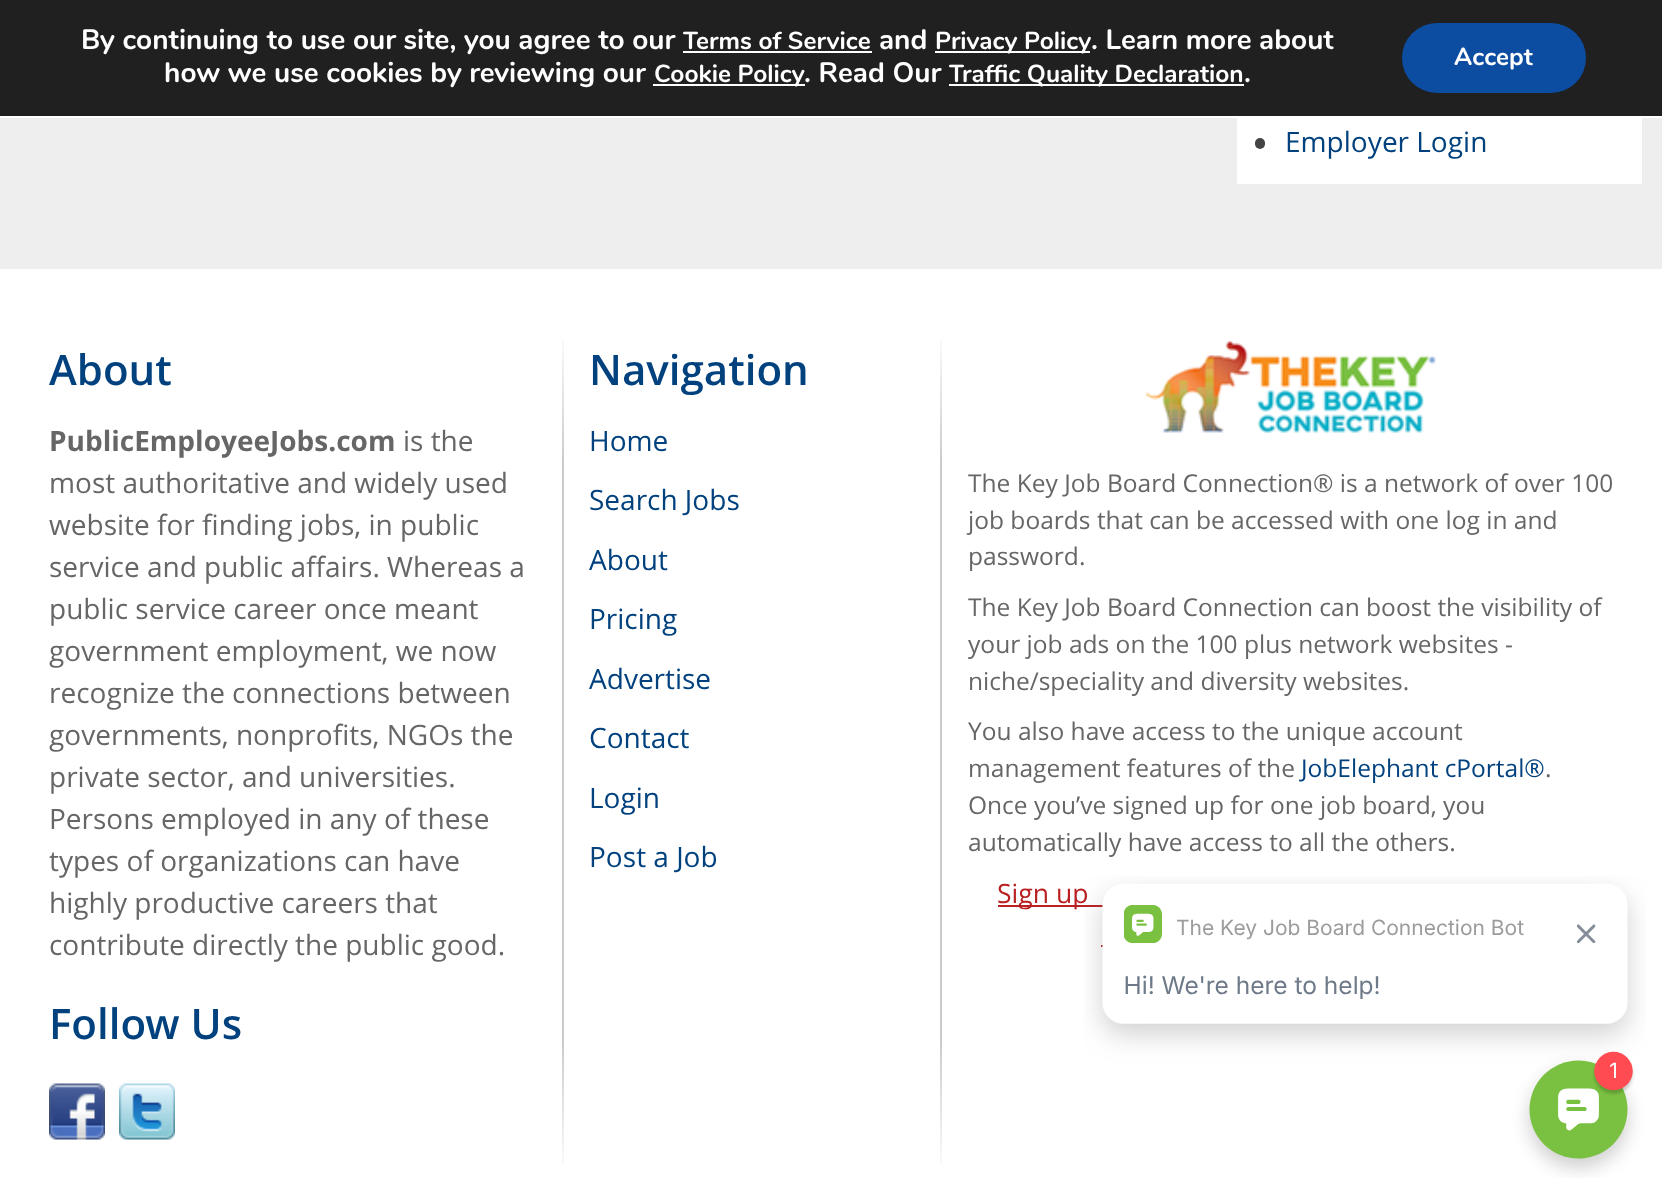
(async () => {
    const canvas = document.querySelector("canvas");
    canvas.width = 1662;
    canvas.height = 1193;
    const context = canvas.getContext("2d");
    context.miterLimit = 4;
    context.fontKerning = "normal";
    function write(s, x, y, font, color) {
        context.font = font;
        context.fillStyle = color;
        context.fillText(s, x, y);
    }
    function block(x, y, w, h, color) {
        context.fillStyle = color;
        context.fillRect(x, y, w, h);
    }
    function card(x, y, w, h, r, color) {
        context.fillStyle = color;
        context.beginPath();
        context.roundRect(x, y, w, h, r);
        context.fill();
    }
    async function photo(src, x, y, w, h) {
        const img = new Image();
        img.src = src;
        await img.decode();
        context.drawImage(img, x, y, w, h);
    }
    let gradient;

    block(0, 0, 1662, 1193, "rgb(238, 238, 238)");
    block(0, 0, 1662, 116, "rgb(32, 32, 32)");
    block(0, 116, 1662, 2, "rgb(255, 255, 255)");
    write("By continuing to use our site, you agree to our", 81, 49, "bold 28px Nunito", "rgb(255, 255, 255)");
    write("Terms of Service", 683, 49, "bold 24.5px Nunito", "rgb(255, 255, 255)");
    block(683, 51, 189, 2, "rgb(255, 255, 255)");
    write("and", 879, 49, "bold 28px Nunito", "rgb(255, 255, 255)");
    block(935, 51, 155, 2, "rgb(255, 255, 255)");
    write("Privacy Policy", 935, 49, "bold 24.5px Nunito", "rgb(255, 255, 255)");
    write(". Learn more about", 1091, 49, "bold 28px Nunito", "rgb(255, 255, 255)");
    write("how we use cookies by reviewing our", 164, 82, "bold 28px Nunito", "rgb(255, 255, 255)");
    block(653, 84, 152, 2, "rgb(255, 255, 255)");
    write("Cookie Policy", 654, 82, "bold 24.5px Nunito", "rgb(255, 255, 255)");
    write(". Read Our", 804, 82, "bold 28px Nunito", "rgb(255, 255, 255)");
    block(949, 84, 295, 2, "rgb(255, 255, 255)");
    write("Traffic Quality Declaration", 949, 82, "bold 24.5px Nunito", "rgb(255, 255, 255)");
    write(".", 1244, 82, "bold 28px Nunito", "rgb(255, 255, 255)");
    card(1402, 23, 184, 70, 35, "rgb(12, 77, 162)");
    write("Accept", 1454, 65, "bold 24.5px Nunito", "rgb(255, 255, 255)");
    block(1237, 118, 405, 66, "rgb(255, 255, 255)");
    card(1255, 138, 10, 11, 5, "rgb(68, 68, 68)");
    write("Employer Login", 1285, 152, "28px Open Sans", "rgb(0, 65, 126)");
    block(0, 269, 1662, 924, "rgb(255, 255, 255)");
    write("About", 49, 385, "600 42px Open Sans", "rgb(0, 65, 126)");
    write("PublicEmployeeJobs.com", 49, 451, "bold 28px Open Sans", "rgb(102, 102, 102)");
    write("is the", 403, 451, "28px Open Sans", "rgb(102, 102, 102)");
    write("most authoritative and widely used", 49, 493, "28px Open Sans", "rgb(102, 102, 102)");
    write("website for finding jobs, in public", 49, 535, "28px Open Sans", "rgb(102, 102, 102)");
    write("service and public affairs. Whereas a", 49, 577, "28px Open Sans", "rgb(102, 102, 102)");
    write("public service career once meant", 49, 619, "28px Open Sans", "rgb(102, 102, 102)");
    write("government employment, we now", 49, 661, "28px Open Sans", "rgb(102, 102, 102)");
    write("recognize the connections between", 49, 703, "28px Open Sans", "rgb(102, 102, 102)");
    write("governments, nonprofits, NGOs the", 49, 745, "28px Open Sans", "rgb(102, 102, 102)");
    write("private sector, and universities.", 49, 787, "28px Open Sans", "rgb(102, 102, 102)");
    write("Persons employed in any of these", 49, 829, "28px Open Sans", "rgb(102, 102, 102)");
    write("types of organizations can have", 49, 871, "28px Open Sans", "rgb(102, 102, 102)");
    write("highly productive careers that", 49, 913, "28px Open Sans", "rgb(102, 102, 102)");
    write("contribute directly the public good.", 49, 955, "28px Open Sans", "rgb(102, 102, 102)");
    write("Follow Us", 49, 1039, "600 42px Open Sans", "rgb(0, 65, 126)");
    await photo("media/1.png", 49, 1083, 56, 57);
    await photo("media/2.png", 119, 1083, 56, 57);
    gradient = context.createLinearGradient(563, 340, 563, 1164);
    gradient.addColorStop(0, "rgb(250, 250, 250)");
    gradient.addColorStop(0.15, "rgb(202, 202, 202)");
    gradient.addColorStop(0.85, "rgb(202, 202, 202)");
    gradient.addColorStop(1, "rgb(250, 250, 250)");
    context.fillStyle = gradient;
    context.fillRect(562, 340, 2, 824);
    write("Navigation", 589, 385, "600 42px Open Sans", "rgb(0, 65, 126)");
    write("Home", 589, 451, "28px Open Sans", "rgb(0, 65, 126)");
    write("Search Jobs", 589, 510, "28px Open Sans", "rgb(0, 65, 126)");
    write("About", 589, 570, "28px Open Sans", "rgb(0, 65, 126)");
    write("Pricing", 589, 629, "28px Open Sans", "rgb(0, 65, 126)");
    write("Advertise", 589, 689, "28px Open Sans", "rgb(0, 65, 126)");
    write("Contact", 589, 748, "28px Open Sans", "rgb(0, 65, 126)");
    write("Login", 589, 808, "28px Open Sans", "rgb(0, 65, 126)");
    write("Post a Job", 589, 867, "28px Open Sans", "rgb(0, 65, 126)");
    gradient = context.createLinearGradient(941, 340, 941, 1164);
    gradient.addColorStop(0, "rgb(250, 250, 250)");
    gradient.addColorStop(0.15, "rgb(202, 202, 202)");
    gradient.addColorStop(0.85, "rgb(202, 202, 202)");
    gradient.addColorStop(1, "rgb(250, 250, 250)");
    context.fillStyle = gradient;
    context.fillRect(940, 340, 2, 824);
    await photo("media/3.png", 1145, 341, 291, 92);
    write("The Key Job Board Connection® is a network of over 100", 968, 492, "24.5px Open Sans", "rgb(102, 102, 102)");
    write("job boards that can be accessed with one log in and", 968, 529, "24.5px Open Sans", "rgb(102, 102, 102)");
    write("password.", 968, 565, "24.5px Open Sans", "rgb(102, 102, 102)");
    write("The Key Job Board Connection can boost the visibility of", 968, 616, "24.5px Open Sans", "rgb(102, 102, 102)");
    write("your job ads on the 100 plus network websites -", 968, 653, "24.5px Open Sans", "rgb(102, 102, 102)");
    write("niche/speciality and diversity websites.", 968, 690, "24.5px Open Sans", "rgb(102, 102, 102)");
    write("You also have access to the unique account", 968, 740, "24.5px Open Sans", "rgb(102, 102, 102)");
    write("management features of the", 968, 777, "24.5px Open Sans", "rgb(102, 102, 102)");
    write("JobElephant cPortal®", 1301, 777, "24.5px Open Sans", "rgb(0, 65, 126)");
    write(".", 1545, 777, "24.5px Open Sans", "rgb(102, 102, 102)");
    write("Once you’ve signed up for one job board, you", 968, 814, "24.5px Open Sans", "rgb(102, 102, 102)");
    write("automatically have access to all the others.", 968, 851, "24.5px Open Sans", "rgb(102, 102, 102)");
    block(998, 905, 105, 2, "rgb(185, 32, 34)");
    write("Sign up", 997, 903, "26.5px Open Sans", "rgb(185, 32, 34)");
    block(1101, 945, 2, 2, "rgb(185, 32, 34)");
    await photo("media/4.png", 1084, 876, 562, 302);
})();
